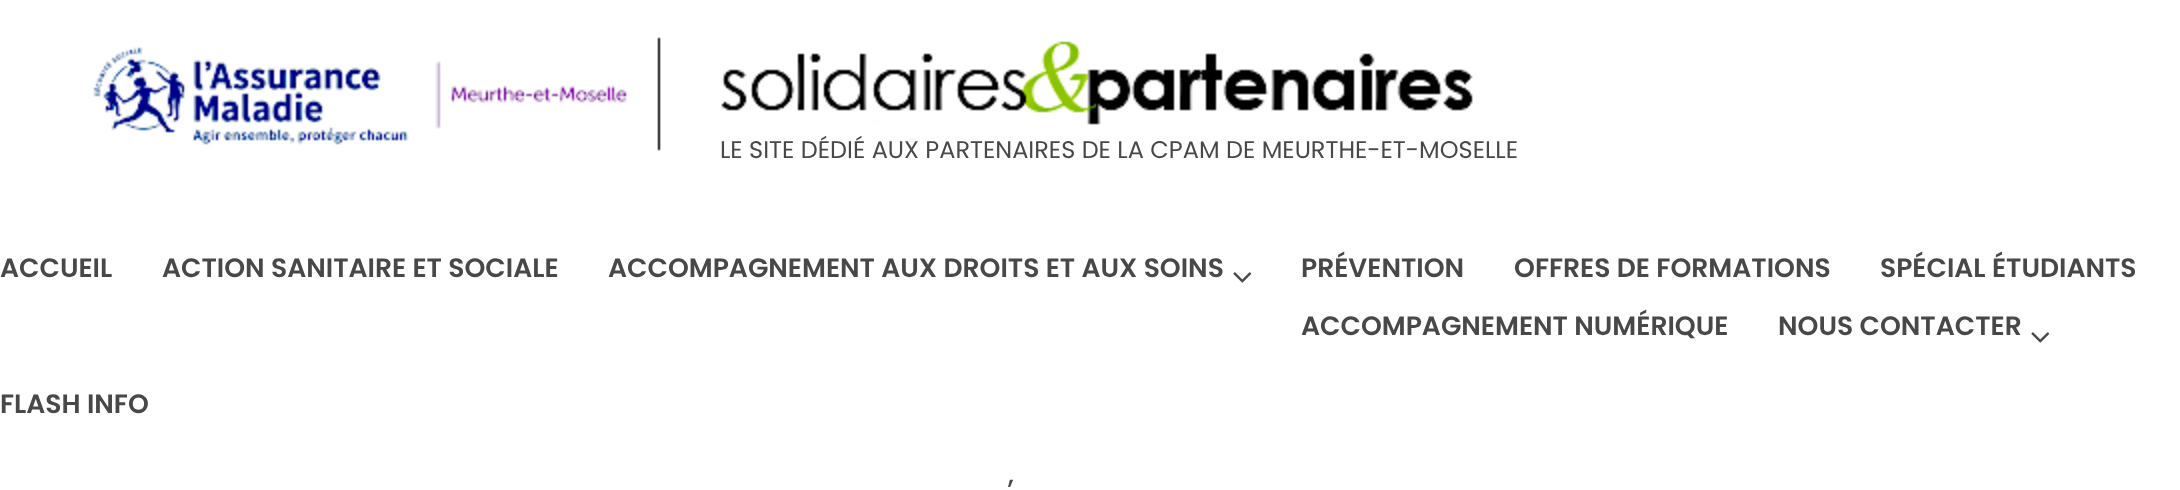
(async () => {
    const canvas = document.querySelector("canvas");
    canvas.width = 2180;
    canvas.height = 490;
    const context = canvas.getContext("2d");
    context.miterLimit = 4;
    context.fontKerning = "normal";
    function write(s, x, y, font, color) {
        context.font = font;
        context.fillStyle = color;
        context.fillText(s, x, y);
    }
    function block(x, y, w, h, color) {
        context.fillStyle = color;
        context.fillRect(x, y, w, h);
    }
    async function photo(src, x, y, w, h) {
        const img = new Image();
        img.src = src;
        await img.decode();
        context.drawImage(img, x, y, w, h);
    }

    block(0, 0, 2180, 490, "rgb(255, 255, 255)");
    await photo("media/1.png", 93, 37, 1380, 114);
    write("LE SITE DÉDIÉ AUX PARTENAIRES DE LA CPAM DE MEURTHE-ET-MOSELLE", 720, 158, "24px Poppins", "rgb(72, 72, 72)");
    write("ACCUEIL", 0, 277, "600 26.6px Poppins", "rgb(72, 72, 72)");
    write("ACTION SANITAIRE ET SOCIALE", 162, 277, "600 26.6px Poppins", "rgb(72, 72, 72)");
    write("ACCOMPAGNEMENT AUX DROITS ET AUX SOINS", 608, 277, "600 26.6px Poppins", "rgb(72, 72, 72)");
    await photo("media/2.png", 1233, 272, 19, 11);
    write("PRÉVENTION", 1301, 277, "600 26.6px Poppins", "rgb(72, 72, 72)");
    write("OFFRES DE FORMATIONS", 1514, 277, "600 26.6px Poppins", "rgb(72, 72, 72)");
    write("SPÉCIAL ÉTUDIANTS", 1880, 277, "600 26.6px Poppins", "rgb(72, 72, 72)");
    write("ACCOMPAGNEMENT NUMÉRIQUE", 1301, 335, "600 26.6px Poppins", "rgb(72, 72, 72)");
    write("NOUS CONTACTER", 1778, 335, "600 26.6px Poppins", "rgb(72, 72, 72)");
    await photo("media/2.png", 2031, 332, 19, 11);
    write("FLASH INFO", 0, 413, "600 26.6px Poppins", "rgb(72, 72, 72)");
    write("’", 1007, 502, "32px Poppins", "rgb(72, 72, 72)");
})();
